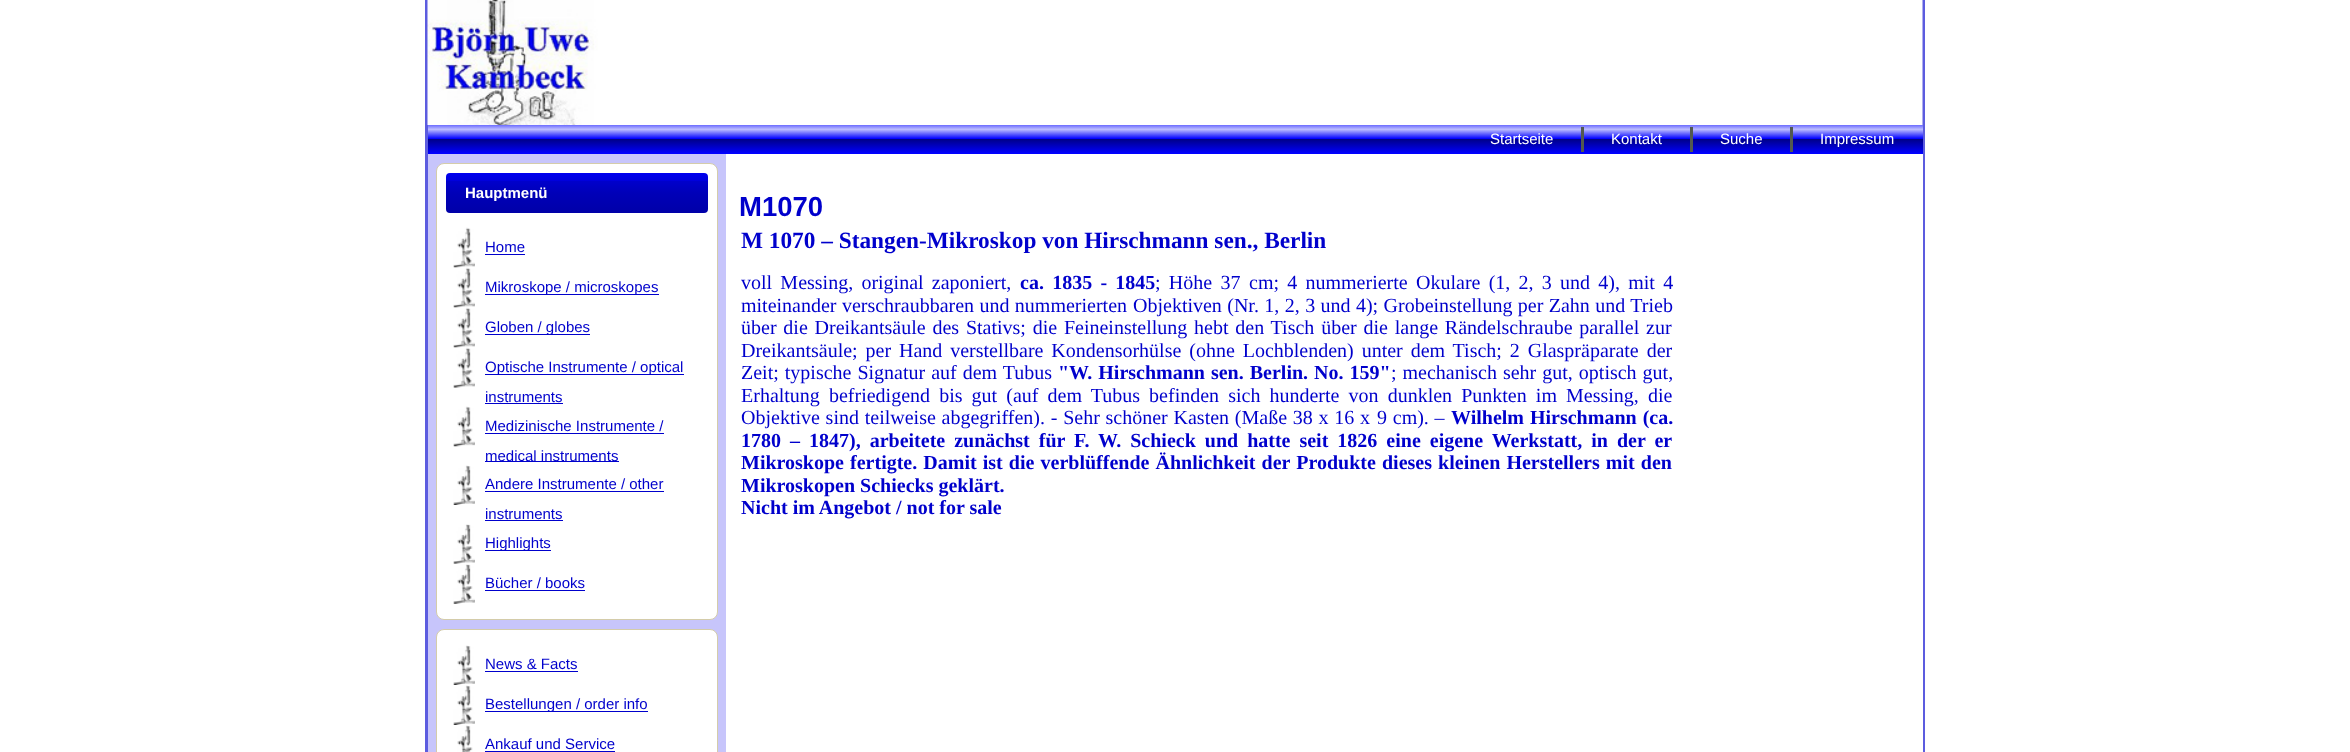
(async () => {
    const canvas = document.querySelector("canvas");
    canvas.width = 2350;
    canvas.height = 752;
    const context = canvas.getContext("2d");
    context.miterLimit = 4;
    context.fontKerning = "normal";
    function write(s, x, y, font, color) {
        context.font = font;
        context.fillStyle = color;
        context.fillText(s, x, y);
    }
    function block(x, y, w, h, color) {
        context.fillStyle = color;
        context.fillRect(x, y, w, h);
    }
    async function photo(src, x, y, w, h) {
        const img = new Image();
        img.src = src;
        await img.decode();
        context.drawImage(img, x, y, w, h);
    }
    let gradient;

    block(0, 0, 2350, 752, "rgb(255, 255, 255)");
    context.fillStyle = "rgb(92, 92, 223)";
    context.beginPath();
    context.moveTo(1925, 0);
    context.lineTo(1925, 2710);
    context.lineTo(1922, 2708);
    context.lineTo(1922, 0);
    context.closePath();
    context.fill();
    context.beginPath();
    context.moveTo(425, 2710);
    context.lineTo(425, 0);
    context.lineTo(428, 0);
    context.lineTo(428, 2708);
    context.closePath();
    context.fill();
    await photo("media/1.png", 427, 0, 1496, 125);
    gradient = context.createLinearGradient(1175, 125, 1175, 154);
    gradient.addColorStop(0, "rgb(107, 107, 255)");
    gradient.addColorStop(0.15, "rgb(189, 189, 255)");
    gradient.addColorStop(0.47, "rgb(0, 0, 255)");
    gradient.addColorStop(0.5, "rgb(0, 0, 240)");
    gradient.addColorStop(0.5, "rgb(0, 0, 138)");
    gradient.addColorStop(0.98, "rgb(0, 0, 255)");
    gradient.addColorStop(1, "rgb(5, 5, 255)");
    context.fillStyle = gradient;
    context.fillRect(428, 125, 1495, 29);
    write("Startseite", 1490, 144, "15px Liberation Sans", "rgb(255, 255, 255)");
    block(1581, 127, 3, 25, "rgb(82, 89, 79)");
    write("Kontakt", 1611, 144, "15px Liberation Sans", "rgb(255, 255, 255)");
    block(1690, 127, 3, 25, "rgb(82, 89, 79)");
    write("Suche", 1720, 144, "15px Liberation Sans", "rgb(255, 255, 255)");
    block(1790, 127, 3, 25, "rgb(82, 89, 79)");
    write("Impressum", 1820, 144, "15px Liberation Sans", "rgb(255, 255, 255)");
    block(428, 154, 298, 598, "rgb(199, 197, 251)");
    context.fillStyle = "rgb(255, 255, 255)";
    context.beginPath();
    context.roundRect(436.5, 163.5, 281, 456, 7.5);
    context.fill();
    context.strokeStyle = "rgb(212, 204, 170)";
    context.stroke();
    gradient = context.createLinearGradient(577, 173, 577, 213);
    gradient.addColorStop(0, "rgb(0, 0, 240)");
    gradient.addColorStop(0.1, "rgb(0, 0, 229)");
    gradient.addColorStop(0.2, "rgb(0, 0, 219)");
    gradient.addColorStop(0.2, "rgb(0, 0, 204)");
    gradient.addColorStop(0.5, "rgb(0, 0, 184)");
    gradient.addColorStop(1, "rgb(0, 0, 168)");
    context.fillStyle = gradient;
    context.beginPath();
    context.roundRect(446, 173, 262, 40, 4);
    context.fill();
    write("Hauptmenü", 465, 198, "bold 15px Liberation Sans", "rgb(255, 255, 255)");
    await photo("media/2.png", 453, 227, 22, 41);
    write("Home", 485, 252, "15px Liberation Sans", "rgb(0, 0, 204)");
    block(485, 254, 40, 1, "rgb(0, 0, 204)");
    await photo("media/3.png", 453, 267, 22, 41);
    block(485, 294, 174, 1, "rgb(0, 0, 204)");
    write("Mikroskope / microskopes", 485, 292, "15px Liberation Sans", "rgb(0, 0, 204)");
    await photo("media/3.png", 453, 307, 22, 41);
    block(485, 334, 105, 1, "rgb(0, 0, 204)");
    write("Globen / globes", 485, 332, "15px Liberation Sans", "rgb(0, 0, 204)");
    await photo("media/3.png", 453, 347, 22, 41);
    block(485, 374, 199, 1, "rgb(0, 0, 204)");
    write("Optische Instrumente / optical", 485, 372, "15px Liberation Sans", "rgb(0, 0, 204)");
    write("instruments", 485, 402, "15px Liberation Sans", "rgb(0, 0, 204)");
    block(485, 403, 78, 1, "rgb(0, 0, 204)");
    await photo("media/4.png", 453, 406, 22, 41);
    write("Medizinische Instrumente /", 485, 431, "15px Liberation Sans", "rgb(0, 0, 204)");
    block(485, 433, 179, 1, "rgb(0, 0, 204)");
    block(485, 461, 134, 1, "rgb(0, 0, 204)");
    write("medical instruments", 485, 461, "15px Liberation Sans", "rgb(0, 0, 204)");
    await photo("media/5.png", 453, 465, 22, 40);
    write("Andere Instrumente / other", 485, 489, "15px Liberation Sans", "rgb(0, 0, 204)");
    block(485, 491, 179, 1, "rgb(0, 0, 204)");
    write("instruments", 485, 519, "15px Liberation Sans", "rgb(0, 0, 204)");
    block(485, 520, 78, 1, "rgb(0, 0, 204)");
    await photo("media/6.png", 453, 524, 22, 40);
    block(485, 550, 66, 1, "rgb(0, 0, 204)");
    write("Highlights", 485, 548, "15px Liberation Sans", "rgb(0, 0, 204)");
    await photo("media/7.png", 453, 563, 22, 41);
    write("Bücher / books", 485, 588, "15px Liberation Sans", "rgb(0, 0, 204)");
    block(485, 590, 100, 1, "rgb(0, 0, 204)");
    context.fillStyle = "rgb(255, 255, 255)";
    context.beginPath();
    context.roundRect(436.5, 629.5, 281, 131, 7.5);
    context.fill();
    context.stroke();
    await photo("media/5.png", 453, 645, 22, 40);
    write("News & Facts", 485, 669, "15px Liberation Sans", "rgb(0, 0, 204)");
    block(485, 671, 93, 1, "rgb(0, 0, 204)");
    await photo("media/5.png", 453, 685, 22, 40);
    block(485, 711, 163, 1, "rgb(0, 0, 204)");
    write("Bestellungen / order info", 485, 709, "15px Liberation Sans", "rgb(0, 0, 204)");
    await photo("media/8.png", 457, 725, 16, 27);
    write("Ankauf und Service", 485, 749, "15px Liberation Sans", "rgb(0, 0, 204)");
    block(485, 751, 130, 1, "rgb(0, 0, 204)");
    write("M1070", 739, 216, "bold 27.5px Liberation Sans", "rgb(0, 0, 204)");
    write("M 1070 – Stangen-Mikroskop von Hirschmann sen., Berlin", 741, 248, "bold 23.3px Liberation Serif", "rgb(0, 0, 204)");
    context.wordSpacing = "3.25px";
    write("voll Messing, original zaponiert,", 741, 289, "20px Liberation Serif", "rgb(0, 0, 204)");
    write("ca. 1835 - 1845", 1020, 289, "bold 20px Liberation Serif", "rgb(0, 0, 204)");
    write("; Höhe 37", 1155, 289, "20px Liberation Serif", "rgb(0, 0, 204)");
    write("cm; 4 nummerierte", 1249, 289, "20px Liberation Serif", "rgb(0, 0, 204)");
    write("Okulare (1, 2, 3 und 4), mit 4", 1416, 289, "20px Liberation Serif", "rgb(0, 0, 204)");
    context.wordSpacing = "0.4px";
    write("miteinander verschraubbaren und nummerierten", 741, 312, "20px Liberation Serif", "rgb(0, 0, 204)");
    write("Objektiven (Nr. 1, 2, 3 und 4); Grobeinstellung per Zahn und Trieb", 1133, 312, "20px Liberation Serif", "rgb(0, 0, 204)");
    context.wordSpacing = "1.8px";
    write("über die Dreikantsäule des Stativs; die Feineinstellung hebt den Tisch über die lange Rändelschraube parallel zur", 741, 334, "20px Liberation Serif", "rgb(0, 0, 204)");
    context.wordSpacing = "2.9px";
    write("Dreikantsäule; per Hand verstellbare Kondensorhülse (ohne Lochblenden) unter dem Tisch; 2 Glaspräparate der", 741, 357, "20px Liberation Serif", "rgb(0, 0, 204)");
    context.wordSpacing = "1px";
    write("Zeit; typische Signatur auf dem Tubus", 741, 379, "20px Liberation Serif", "rgb(0, 0, 204)");
    write("\"W. Hirschmann sen. Berlin. No. 159\"", 1058, 379, "bold 20px Liberation Serif", "rgb(0, 0, 204)");
    write("; mechanisch sehr gut, optisch gut,", 1391, 379, "20px Liberation Serif", "rgb(0, 0, 204)");
    context.wordSpacing = "4.1px";
    write("Erhaltung befriedigend bis gut (auf dem Tubus befinden sich hunderte von dunklen Punkten im Messing, die", 741, 402, "20px Liberation Serif", "rgb(0, 0, 204)");
    context.wordSpacing = "0.75px";
    write("Objektive sind teilweise abgegriffen). - Sehr schöner Kasten (Maße 38 x 16 x", 741, 424, "20px Liberation Serif", "rgb(0, 0, 204)");
    write("9 cm). –", 1377, 424, "20px Liberation Serif", "rgb(0, 0, 204)");
    context.wordSpacing = "1px";
    write("Wilhelm Hirschmann (ca.", 1451, 424, "bold 20px Liberation Serif", "rgb(0, 0, 204)");
    context.wordSpacing = "4px";
    write("1780 – 1847), arbeitete zunächst für F. W. Schieck und hatte seit 1826 eine eigene Werkstatt, in der er", 741, 447, "bold 20px Liberation Serif", "rgb(0, 0, 204)");
    context.wordSpacing = "1.1px";
    write("Mikroskope fertigte. Damit ist die verblüffende Ähnlichkeit der Produkte dieses kleinen Herstellers mit den", 741, 469, "bold 20px Liberation Serif", "rgb(0, 0, 204)");
    context.wordSpacing = "0px";
    write("Mikroskopen Schiecks geklärt.", 741, 492, "bold 20px Liberation Serif", "rgb(0, 0, 204)");
    write("Nicht im Angebot / not for sale", 741, 514, "bold 20px Liberation Serif", "rgb(0, 0, 204)");
    block(1922, 154, 1, 598, "rgb(255, 255, 255)");
})();
